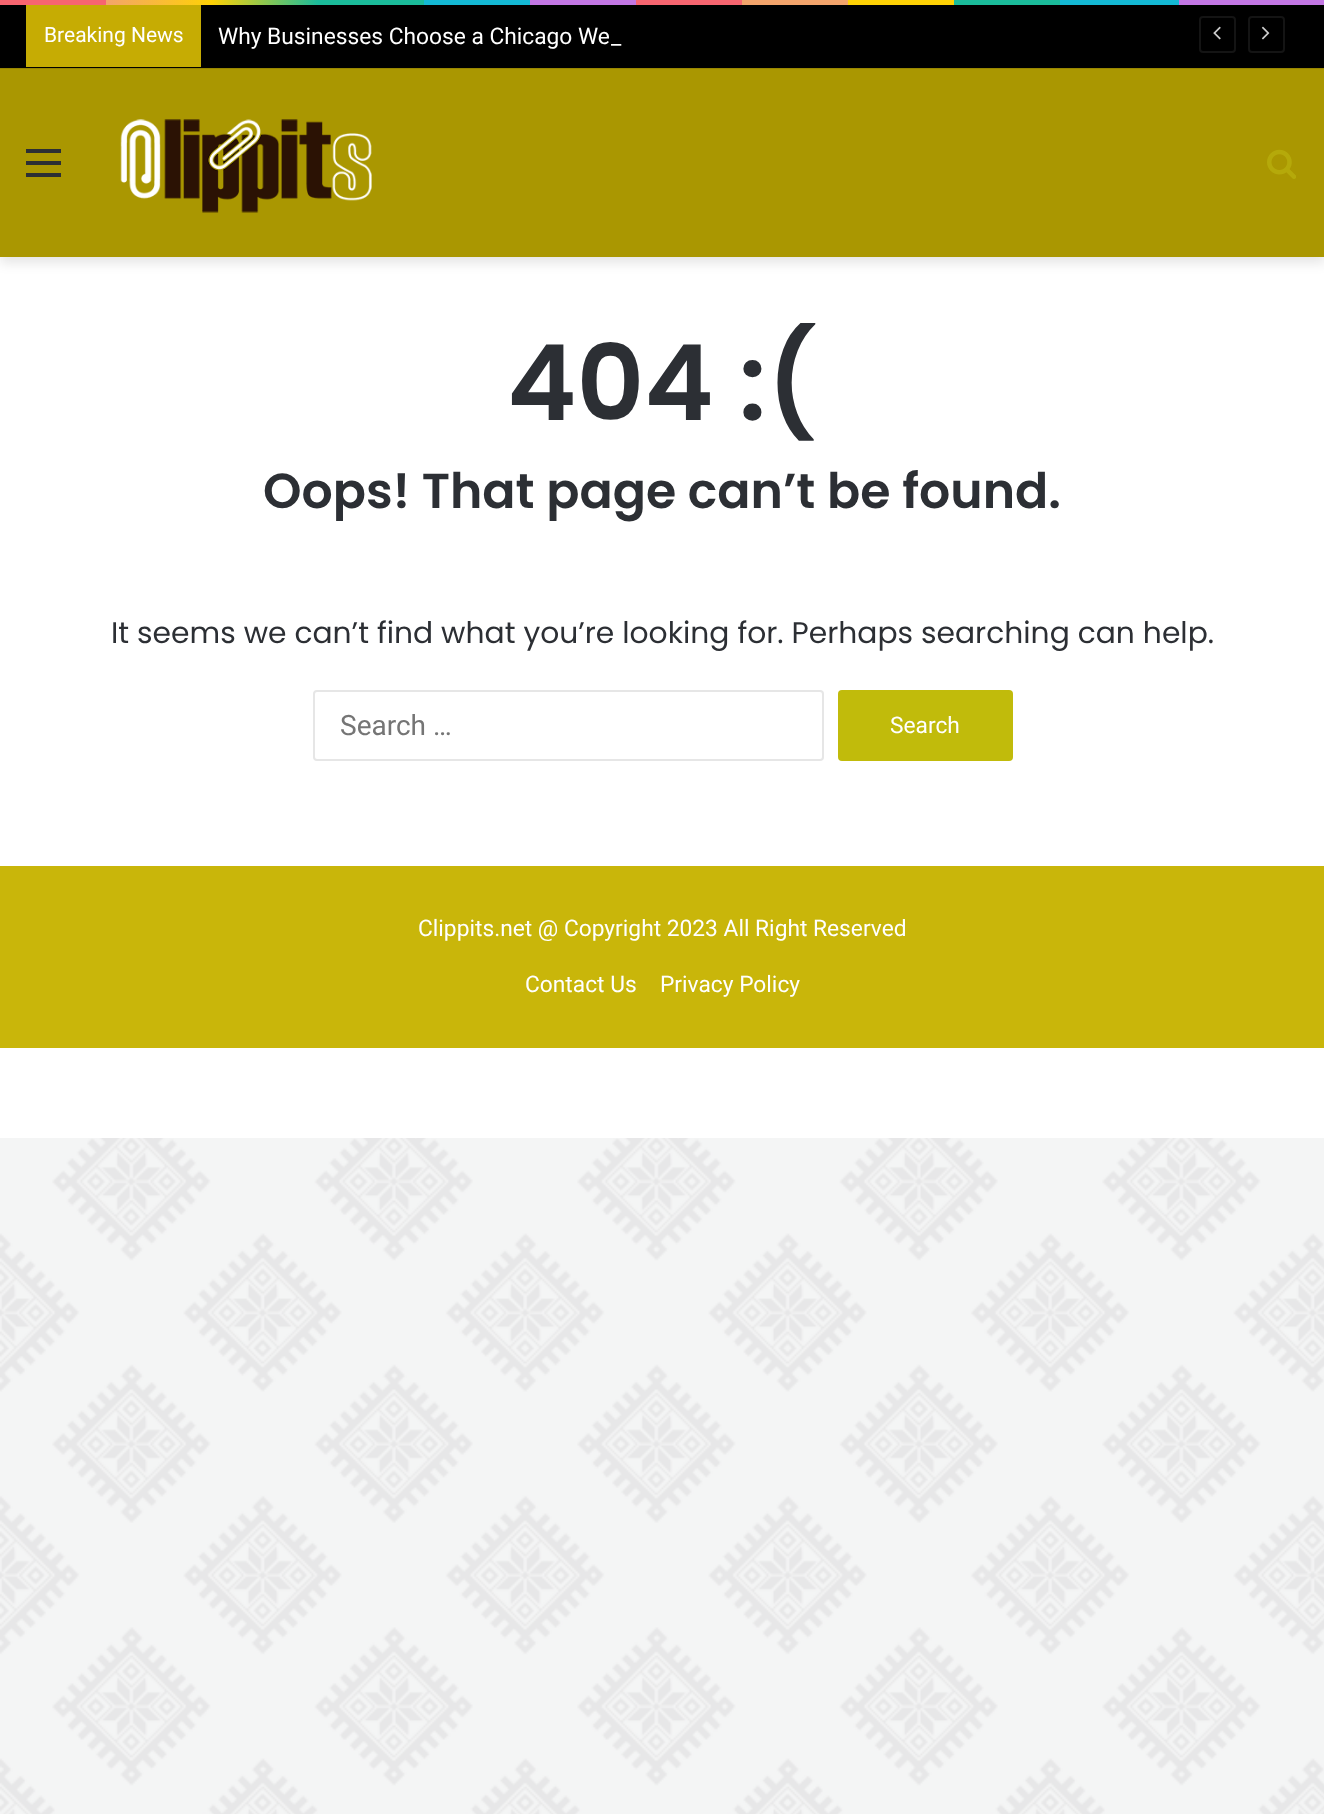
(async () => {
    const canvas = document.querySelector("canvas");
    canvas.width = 1324;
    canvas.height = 1814;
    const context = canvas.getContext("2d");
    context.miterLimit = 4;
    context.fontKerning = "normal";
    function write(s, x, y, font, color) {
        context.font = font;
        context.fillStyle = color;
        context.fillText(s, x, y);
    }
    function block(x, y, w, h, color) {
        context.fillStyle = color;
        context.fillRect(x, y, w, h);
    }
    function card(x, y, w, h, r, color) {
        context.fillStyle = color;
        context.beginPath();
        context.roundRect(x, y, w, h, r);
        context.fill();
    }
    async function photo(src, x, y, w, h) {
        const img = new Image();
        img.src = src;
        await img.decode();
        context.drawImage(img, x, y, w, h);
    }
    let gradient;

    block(0, 0, 1324, 1814, "rgb(247, 247, 247)");
    await photo("media/1.png", 0, 1138, 1324, 676);
    block(0, 257, 1324, 881, "rgb(255, 255, 255)");
    gradient = context.createLinearGradient(0, 2.6, 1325, 2.6);
    gradient.addColorStop(0, "rgb(247, 101, 112)");
    gradient.addColorStop(0.08, "rgb(247, 101, 112)");
    gradient.addColorStop(0.08, "rgb(243, 164, 107)");
    gradient.addColorStop(0.16, "rgb(255, 210, 5)");
    gradient.addColorStop(0.24, "rgb(27, 188, 155)");
    gradient.addColorStop(0.32, "rgb(27, 188, 155)");
    gradient.addColorStop(0.32, "rgb(20, 185, 213)");
    gradient.addColorStop(0.4, "rgb(20, 185, 213)");
    gradient.addColorStop(0.4, "rgb(195, 119, 228)");
    gradient.addColorStop(0.48, "rgb(195, 119, 228)");
    gradient.addColorStop(0.48, "rgb(247, 101, 112)");
    gradient.addColorStop(0.56, "rgb(247, 101, 112)");
    gradient.addColorStop(0.56, "rgb(243, 164, 107)");
    gradient.addColorStop(0.64, "rgb(243, 164, 107)");
    gradient.addColorStop(0.64, "rgb(255, 210, 5)");
    gradient.addColorStop(0.72, "rgb(255, 210, 5)");
    gradient.addColorStop(0.72, "rgb(27, 188, 155)");
    gradient.addColorStop(0.8, "rgb(27, 188, 155)");
    gradient.addColorStop(0.8, "rgb(20, 185, 213)");
    gradient.addColorStop(0.89, "rgb(20, 185, 213)");
    gradient.addColorStop(0.89, "rgb(195, 119, 228)");
    gradient.addColorStop(1, "rgb(195, 119, 228)");
    context.fillStyle = gradient;
    context.fillRect(0, 0, 1324, 5);
    context.fillStyle = "rgba(0, 0, 0, 0.1)";
    context.filter = "blur(6px)";
    context.beginPath();
    context.rect(0, 74, 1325, 189);
    context.fill();
    context.filter = "none";
    block(0, 5, 1324, 63, "rgb(0, 0, 0)");
    block(0, 68, 1324, 189, "rgb(170, 151, 1)");
    block(0, 68, 1324, 1, "rgba(0, 0, 0, 0.1)");
    block(26, 5, 175, 62, "rgb(198, 172, 3)");
    write("Breaking News", 44, 42, "21px Roboto", "rgb(255, 255, 255)");
    write("Why Businesses Choose a Chicago We", 218, 44, "22.75px Roboto", "rgb(255, 255, 255)");
    block(609, 35, 1, 8, "rgb(0, 0, 0)");
    write("_", 611, 44, "22.75px Roboto", "rgb(255, 255, 255)");
    context.beginPath();
    context.roundRect(1200, 17, 35, 35, 3);
    context.strokeStyle = "rgb(20, 20, 20)";
    context.lineWidth = 2;
    context.stroke();
    await photo("media/2.png", 1213, 26, 8, 14);
    context.beginPath();
    context.roundRect(1249, 17, 35, 35, 3);
    context.stroke();
    await photo("media/3.png", 1261, 26, 9, 14);
    block(26, 161, 35, 4, "rgb(44, 47, 52)");
    block(26, 149, 35, 4, "rgb(44, 47, 52)");
    block(26, 173, 35, 4, "rgb(44, 47, 52)");
    await photo("media/4.png", 120, 119, 252, 94);
    await photo("media/5.png", 1267, 149, 29, 30);
    write("404 :(", 507, 420, "600 105px Poppins", "rgb(44, 47, 52)");
    write("Oops! That page can’t be found.", 263, 508, "600 49px Poppins", "rgb(44, 47, 52)");
    write("It seems we can’t find what you’re looking for. Perhaps searching can help.", 111, 643, "29.75px Poppins", "rgb(44, 47, 52)");
    context.beginPath();
    context.roundRect(314, 691, 509, 69, 3);
    context.strokeStyle = "rgb(230, 230, 230)";
    context.stroke();
    write("Search …", 340, 735, "28px Roboto", "rgb(117, 117, 117)");
    card(838, 690, 175, 71, 4, "rgb(193, 187, 11)");
    write("Search", 890, 733, "22.75px Roboto", "rgb(255, 255, 255)");
    block(0, 866, 1324, 182, "rgb(201, 182, 10)");
    write("Clippits.net @ Copyright 2023 All Right Reserved", 418, 936, "22.75px Roboto", "rgb(255, 255, 255)");
    write("Contact Us", 525, 992, "22.75px Roboto", "rgb(255, 255, 255)");
    write("Privacy Policy", 660, 992, "22.75px Roboto", "rgb(255, 255, 255)");
})();
